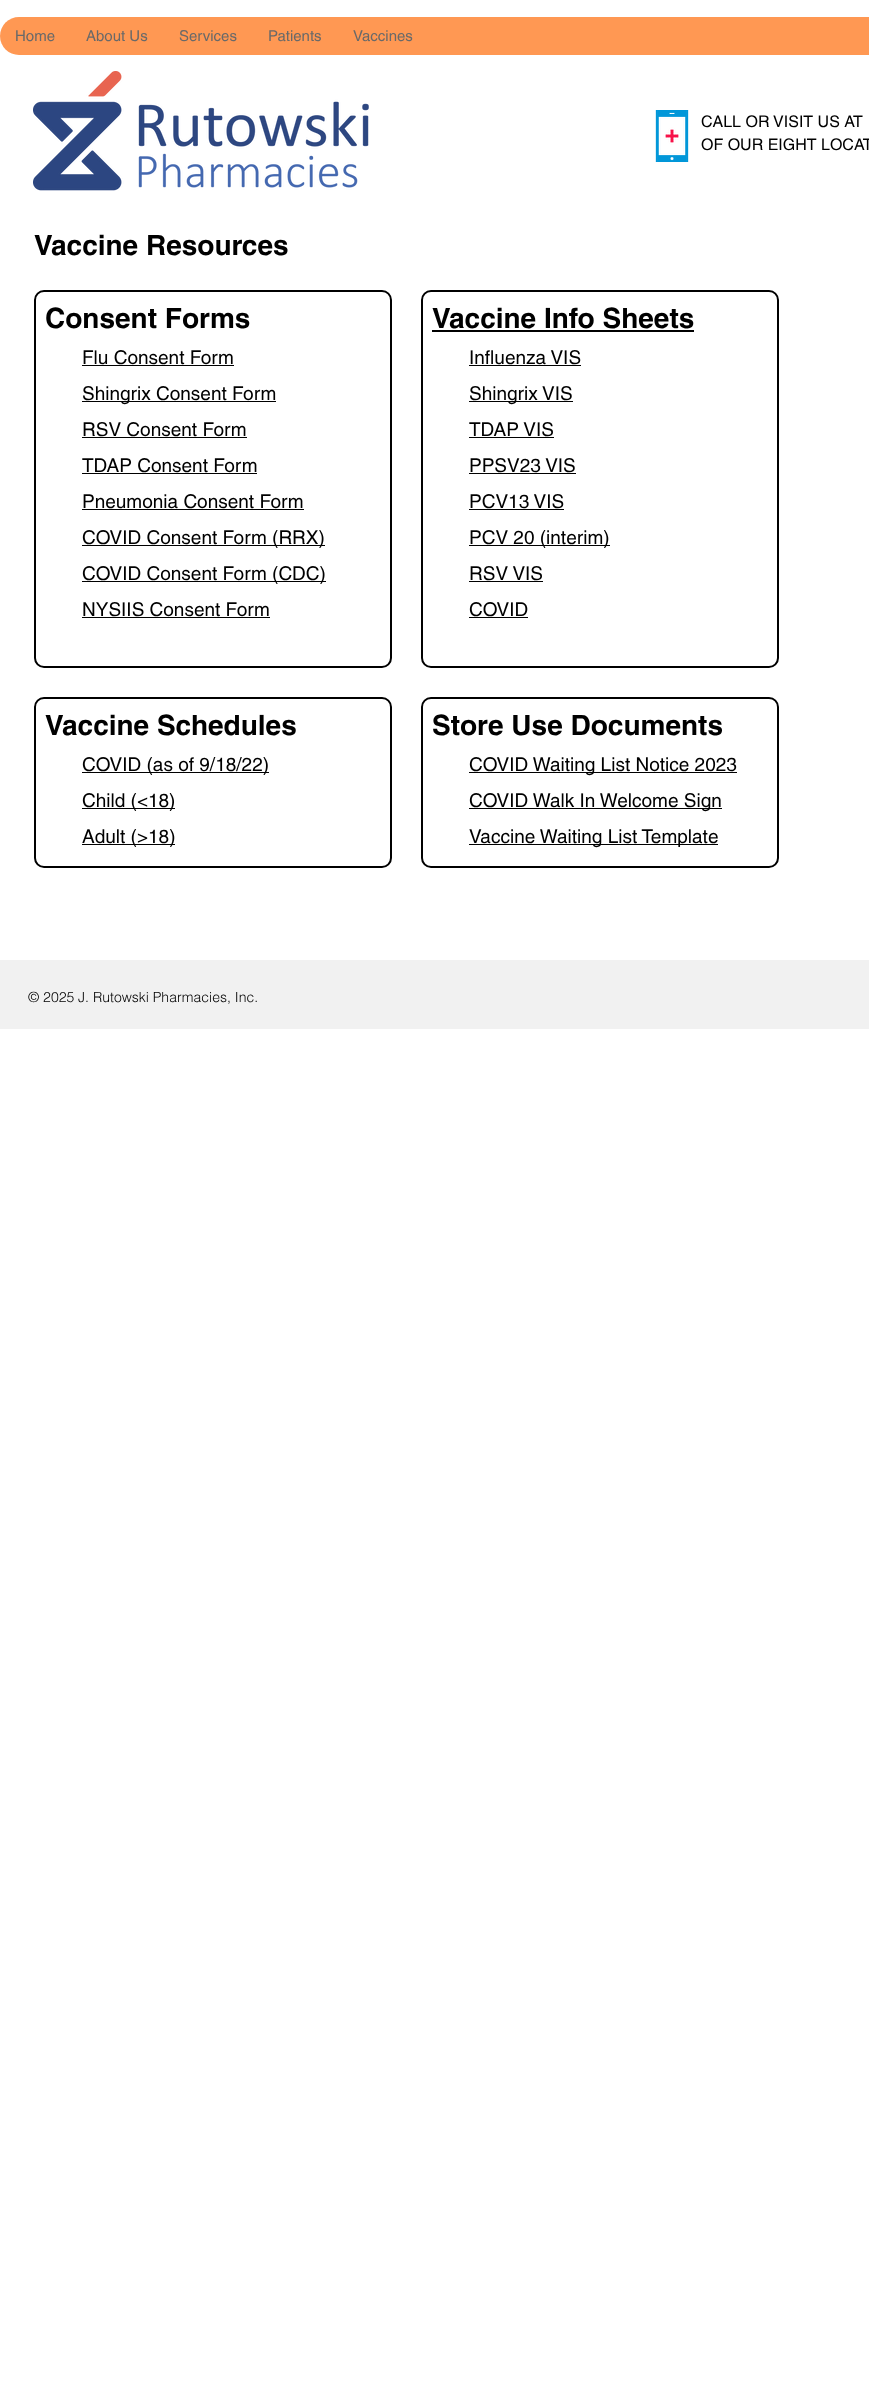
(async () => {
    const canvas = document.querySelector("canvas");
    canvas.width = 869;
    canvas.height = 2382;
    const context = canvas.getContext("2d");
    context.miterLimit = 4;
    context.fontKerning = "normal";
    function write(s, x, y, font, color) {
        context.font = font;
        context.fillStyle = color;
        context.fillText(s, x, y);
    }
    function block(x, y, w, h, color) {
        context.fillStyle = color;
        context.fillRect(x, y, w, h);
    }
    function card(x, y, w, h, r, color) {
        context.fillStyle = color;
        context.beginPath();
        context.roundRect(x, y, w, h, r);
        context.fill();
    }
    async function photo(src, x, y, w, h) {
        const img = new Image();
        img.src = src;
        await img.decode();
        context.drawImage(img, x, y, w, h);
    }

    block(0, 0, 869, 2382, "rgb(255, 255, 255)");
    card(0, 17, 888, 38, 19, "rgb(255, 152, 83)");
    write("Home", 15, 41, "15px helvetica", "rgb(105, 105, 105)");
    write("About Us", 86, 41, "15px helvetica", "rgb(105, 105, 105)");
    write("Services", 179, 41, "15px helvetica", "rgb(105, 105, 105)");
    write("Patients", 268, 41, "15px helvetica", "rgb(105, 105, 105)");
    write("Vaccines", 353, 41, "15px helvetica", "rgb(105, 105, 105)");
    await photo("media/1.png", 33, 71, 336, 120);
    await photo("media/2.png", 655, 110, 34, 52);
    write("CALL OR VISIT US AT", 701, 127, "16px helvetica", "rgb(0, 0, 0)");
    write("OF OUR EIGHT LOCAT", 701, 150, "16px helvetica", "rgb(0, 0, 0)");
    write("Vaccine Resources", 34, 255, "bold 28px helvetica", "rgb(0, 0, 0)");
    context.beginPath();
    context.roundRect(35, 291, 356, 376, 9);
    context.strokeStyle = "rgb(0, 0, 0)";
    context.lineWidth = 2;
    context.stroke();
    write("Consent Forms", 45, 328, "bold 28px helvetica", "rgb(0, 0, 0)");
    write("Flu Consent Form", 82, 364, "19px helvetica", "rgb(0, 0, 0)");
    block(82, 365, 152, 1, "rgb(0, 0, 0)");
    block(82, 401, 194, 1, "rgb(0, 0, 0)");
    write("Shingrix Consent Form", 82, 400, "19px helvetica", "rgb(0, 0, 0)");
    write("RSV Consent Form", 82, 436, "19px helvetica", "rgb(0, 0, 0)");
    block(82, 437, 165, 1, "rgb(0, 0, 0)");
    write("TDAP Consent Form", 82, 472, "19px helvetica", "rgb(0, 0, 0)");
    block(82, 473, 175, 1, "rgb(0, 0, 0)");
    write("Pneumonia Consent Form", 82, 508, "19px helvetica", "rgb(0, 0, 0)");
    block(82, 509, 222, 1, "rgb(0, 0, 0)");
    block(82, 545, 243, 1, "rgb(0, 0, 0)");
    write("COVID Consent Form (RRX)", 82, 544, "19px helvetica", "rgb(0, 0, 0)");
    block(82, 581, 244, 1, "rgb(0, 0, 0)");
    write("COVID Consent Form (CDC)", 82, 580, "19px helvetica", "rgb(0, 0, 0)");
    write("NYSIIS Consent Form", 82, 616, "19px helvetica", "rgb(0, 0, 0)");
    block(82, 617, 188, 1, "rgb(0, 0, 0)");
    context.beginPath();
    context.roundRect(422, 291, 356, 376, 9);
    context.stroke();
    write("Vaccine Info Sheets", 432, 328, "bold 28px helvetica", "rgb(0, 0, 0)");
    block(432, 330, 262, 2, "rgb(0, 0, 0)");
    write("Influenza VIS", 469, 364, "19px helvetica", "rgb(0, 0, 0)");
    block(469, 365, 112, 1, "rgb(0, 0, 0)");
    block(469, 401, 104, 1, "rgb(0, 0, 0)");
    write("Shingrix VIS", 469, 400, "19px helvetica", "rgb(0, 0, 0)");
    write("TDAP VIS", 469, 436, "19px helvetica", "rgb(0, 0, 0)");
    block(469, 437, 85, 1, "rgb(0, 0, 0)");
    write("PPSV23 VIS", 469, 472, "19px helvetica", "rgb(0, 0, 0)");
    block(469, 473, 107, 1, "rgb(0, 0, 0)");
    write("PCV13 VIS", 469, 508, "19px helvetica", "rgb(0, 0, 0)");
    block(469, 509, 95, 1, "rgb(0, 0, 0)");
    block(469, 545, 141, 1, "rgb(0, 0, 0)");
    write("PCV 20 (interim)", 469, 544, "19px helvetica", "rgb(0, 0, 0)");
    write("RSV VIS", 469, 580, "19px helvetica", "rgb(0, 0, 0)");
    block(469, 581, 74, 1, "rgb(0, 0, 0)");
    write("COVID", 469, 616, "19px helvetica", "rgb(0, 0, 0)");
    block(469, 617, 59, 1, "rgb(0, 0, 0)");
    context.beginPath();
    context.roundRect(35, 698, 356, 169, 9);
    context.stroke();
    write("Vaccine Schedules", 45, 735, "bold 28px helvetica", "rgb(0, 0, 0)");
    block(82, 772, 187, 1, "rgb(0, 0, 0)");
    write("COVID (as of 9/18/22)", 82, 771, "19px helvetica", "rgb(0, 0, 0)");
    block(82, 808, 93, 1, "rgb(0, 0, 0)");
    write("Child (<18)", 82, 807, "19px helvetica", "rgb(0, 0, 0)");
    block(82, 844, 93, 1, "rgb(0, 0, 0)");
    write("Adult (>18)", 82, 843, "19px helvetica", "rgb(0, 0, 0)");
    context.beginPath();
    context.roundRect(422, 698, 356, 169, 9);
    context.stroke();
    write("Store Use Documents", 432, 735, "bold 28px helvetica", "rgb(0, 0, 0)");
    block(469, 772, 268, 1, "rgb(0, 0, 0)");
    write("COVID Waiting List Notice 2023", 469, 771, "19px helvetica", "rgb(0, 0, 0)");
    block(469, 808, 253, 1, "rgb(0, 0, 0)");
    write("COVID Walk In Welcome Sign", 469, 807, "19px helvetica", "rgb(0, 0, 0)");
    block(469, 844, 249, 1, "rgb(0, 0, 0)");
    write("Vaccine Waiting List Template", 469, 843, "19px helvetica", "rgb(0, 0, 0)");
    block(0, 960, 869, 69, "rgb(241, 241, 241)");
    write("© 2025 J. Rutowski Pharmacies, Inc.", 28, 1002, "300 14px helvetica", "rgb(0, 0, 0)");
})();
